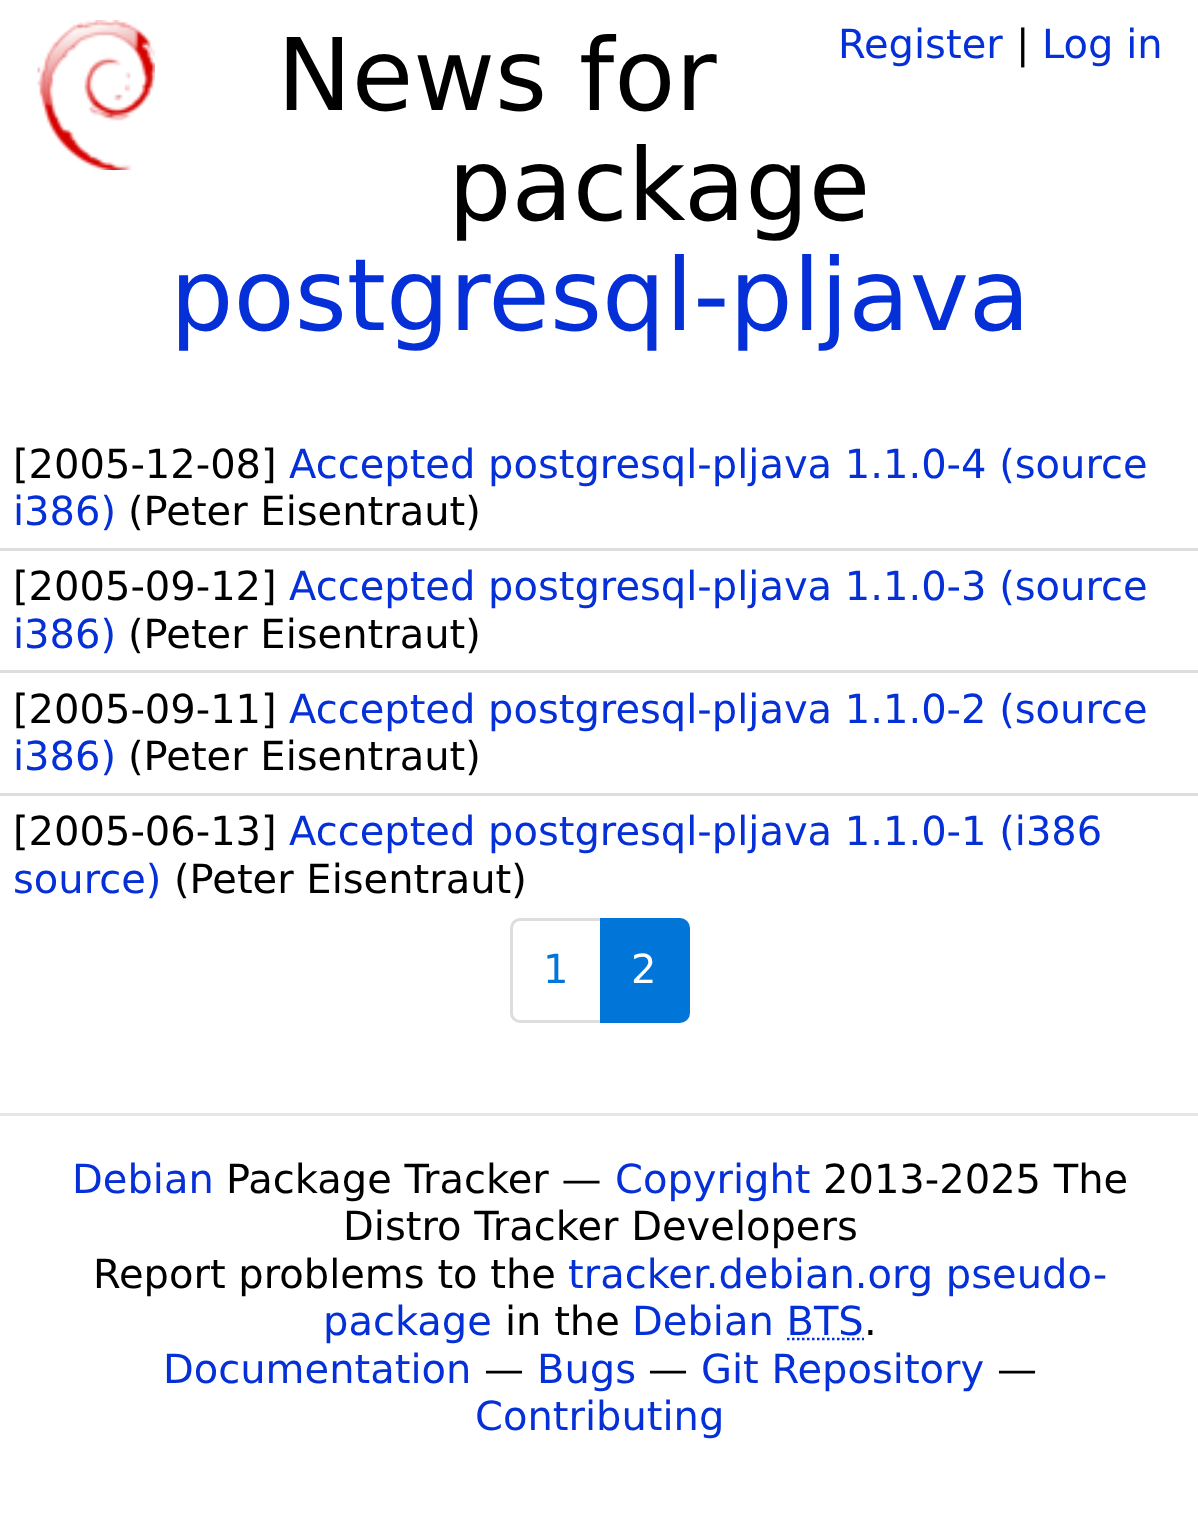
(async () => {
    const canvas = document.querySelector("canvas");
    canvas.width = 1198;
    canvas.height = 1527;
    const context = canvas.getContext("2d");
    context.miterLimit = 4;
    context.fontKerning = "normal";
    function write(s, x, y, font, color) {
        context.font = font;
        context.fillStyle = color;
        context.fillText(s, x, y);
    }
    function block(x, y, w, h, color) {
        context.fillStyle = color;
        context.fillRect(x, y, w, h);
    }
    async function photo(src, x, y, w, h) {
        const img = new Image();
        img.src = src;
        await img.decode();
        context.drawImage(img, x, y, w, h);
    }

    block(0, 0, 1198, 1527, "rgb(255, 255, 255)");
    await photo("media/1.png", 37, 20, 118, 150);
    write("Register", 838, 58, "40px DejaVu Sans", "rgb(5, 48, 215)");
    write("|", 1016, 58, "40px DejaVu Sans", "rgb(0, 0, 0)");
    write("Log in", 1042, 58, "40px DejaVu Sans", "rgb(5, 48, 215)");
    write("News for", 277, 110, "100px DejaVu Sans", "rgb(0, 0, 0)");
    write("package", 448, 220, "100px DejaVu Sans", "rgb(0, 0, 0)");
    write("postgresql-pljava", 170, 330, "100px DejaVu Sans", "rgb(5, 48, 215)");
    write("[2005-12-08]", 13, 478, "40px DejaVu Sans", "rgb(0, 0, 0)");
    write("Accepted postgresql-pljava 1.1.0-4 (source", 289, 478, "40px DejaVu Sans", "rgb(5, 48, 215)");
    write("i386)", 13, 525, "40px DejaVu Sans", "rgb(5, 48, 215)");
    write("(Peter Eisentraut)", 128, 525, "40px DejaVu Sans", "rgb(0, 0, 0)");
    block(0, 548, 1198, 3, "rgb(221, 221, 221)");
    block(0, 670, 1198, 3, "rgb(221, 221, 221)");
    write("[2005-09-12]", 13, 600, "40px DejaVu Sans", "rgb(0, 0, 0)");
    write("Accepted postgresql-pljava 1.1.0-3 (source", 289, 600, "40px DejaVu Sans", "rgb(5, 48, 215)");
    write("i386)", 13, 648, "40px DejaVu Sans", "rgb(5, 48, 215)");
    write("(Peter Eisentraut)", 128, 648, "40px DejaVu Sans", "rgb(0, 0, 0)");
    write("[2005-09-11]", 13, 723, "40px DejaVu Sans", "rgb(0, 0, 0)");
    write("Accepted postgresql-pljava 1.1.0-2 (source", 289, 723, "40px DejaVu Sans", "rgb(5, 48, 215)");
    write("i386)", 13, 770, "40px DejaVu Sans", "rgb(5, 48, 215)");
    write("(Peter Eisentraut)", 128, 770, "40px DejaVu Sans", "rgb(0, 0, 0)");
    block(0, 793, 1198, 3, "rgb(221, 221, 221)");
    write("[2005-06-13]", 13, 845, "40px DejaVu Sans", "rgb(0, 0, 0)");
    write("Accepted postgresql-pljava 1.1.0-1 (i386", 289, 845, "40px DejaVu Sans", "rgb(5, 48, 215)");
    write("source)", 13, 893, "40px DejaVu Sans", "rgb(5, 48, 215)");
    write("(Peter Eisentraut)", 174, 893, "40px DejaVu Sans", "rgb(0, 0, 0)");
    context.beginPath();
    context.roundRect(511.5, 919.5, 90, 102, [8.5, 0, 0, 8.5]);
    context.strokeStyle = "rgb(221, 221, 221)";
    context.lineWidth = 3;
    context.stroke();
    write("1", 543, 983, "40px DejaVu Sans", "rgb(2, 117, 216)");
    context.beginPath();
    context.roundRect(601.5, 919.5, 87, 102, [0, 8.5, 8.5, 0]);
    context.fill();
    context.strokeStyle = "rgb(2, 117, 216)";
    context.stroke();
    write("2", 631, 983, "40px DejaVu Sans", "rgb(255, 255, 255)");
    block(0, 1113, 1198, 3, "rgb(230, 230, 230)");
    write("Debian", 72, 1193, "40px DejaVu Sans", "rgb(5, 48, 215)");
    write("Package Tracker —", 226, 1193, "40px DejaVu Sans", "rgb(0, 0, 0)");
    write("Copyright", 615, 1193, "40px DejaVu Sans", "rgb(5, 48, 215)");
    write("2013-2025 The", 823, 1193, "40px DejaVu Sans", "rgb(0, 0, 0)");
    write("Distro Tracker Developers", 343, 1240, "40px DejaVu Sans", "rgb(0, 0, 0)");
    write("Report problems to the", 93, 1288, "40px DejaVu Sans", "rgb(0, 0, 0)");
    write("tracker.debian.org pseudo-", 568, 1288, "40px DejaVu Sans", "rgb(5, 48, 215)");
    write("package", 323, 1335, "40px DejaVu Sans", "rgb(5, 48, 215)");
    write("in the", 505, 1335, "40px DejaVu Sans", "rgb(0, 0, 0)");
    write("Debian BTS", 632, 1335, "40px DejaVu Sans", "rgb(5, 48, 215)");
    context.beginPath();
    context.moveTo(787, 1339);
    context.lineTo(864, 1339);
    context.strokeStyle = "rgb(5, 48, 215)";
    context.lineWidth = 2.5;
    context.setLineDash([2.5, 2.5]);
    context.stroke();
    write(".", 864, 1335, "40px DejaVu Sans", "rgb(0, 0, 0)");
    write("Documentation", 163, 1383, "40px DejaVu Sans", "rgb(5, 48, 215)");
    write("—", 484, 1383, "40px DejaVu Sans", "rgb(0, 0, 0)");
    write("Bugs", 537, 1383, "40px DejaVu Sans", "rgb(5, 48, 215)");
    write("—", 648, 1383, "40px DejaVu Sans", "rgb(0, 0, 0)");
    write("Git Repository", 701, 1383, "40px DejaVu Sans", "rgb(5, 48, 215)");
    write("—", 997, 1383, "40px DejaVu Sans", "rgb(0, 0, 0)");
    write("Contributing", 475, 1430, "40px DejaVu Sans", "rgb(5, 48, 215)");
})();
